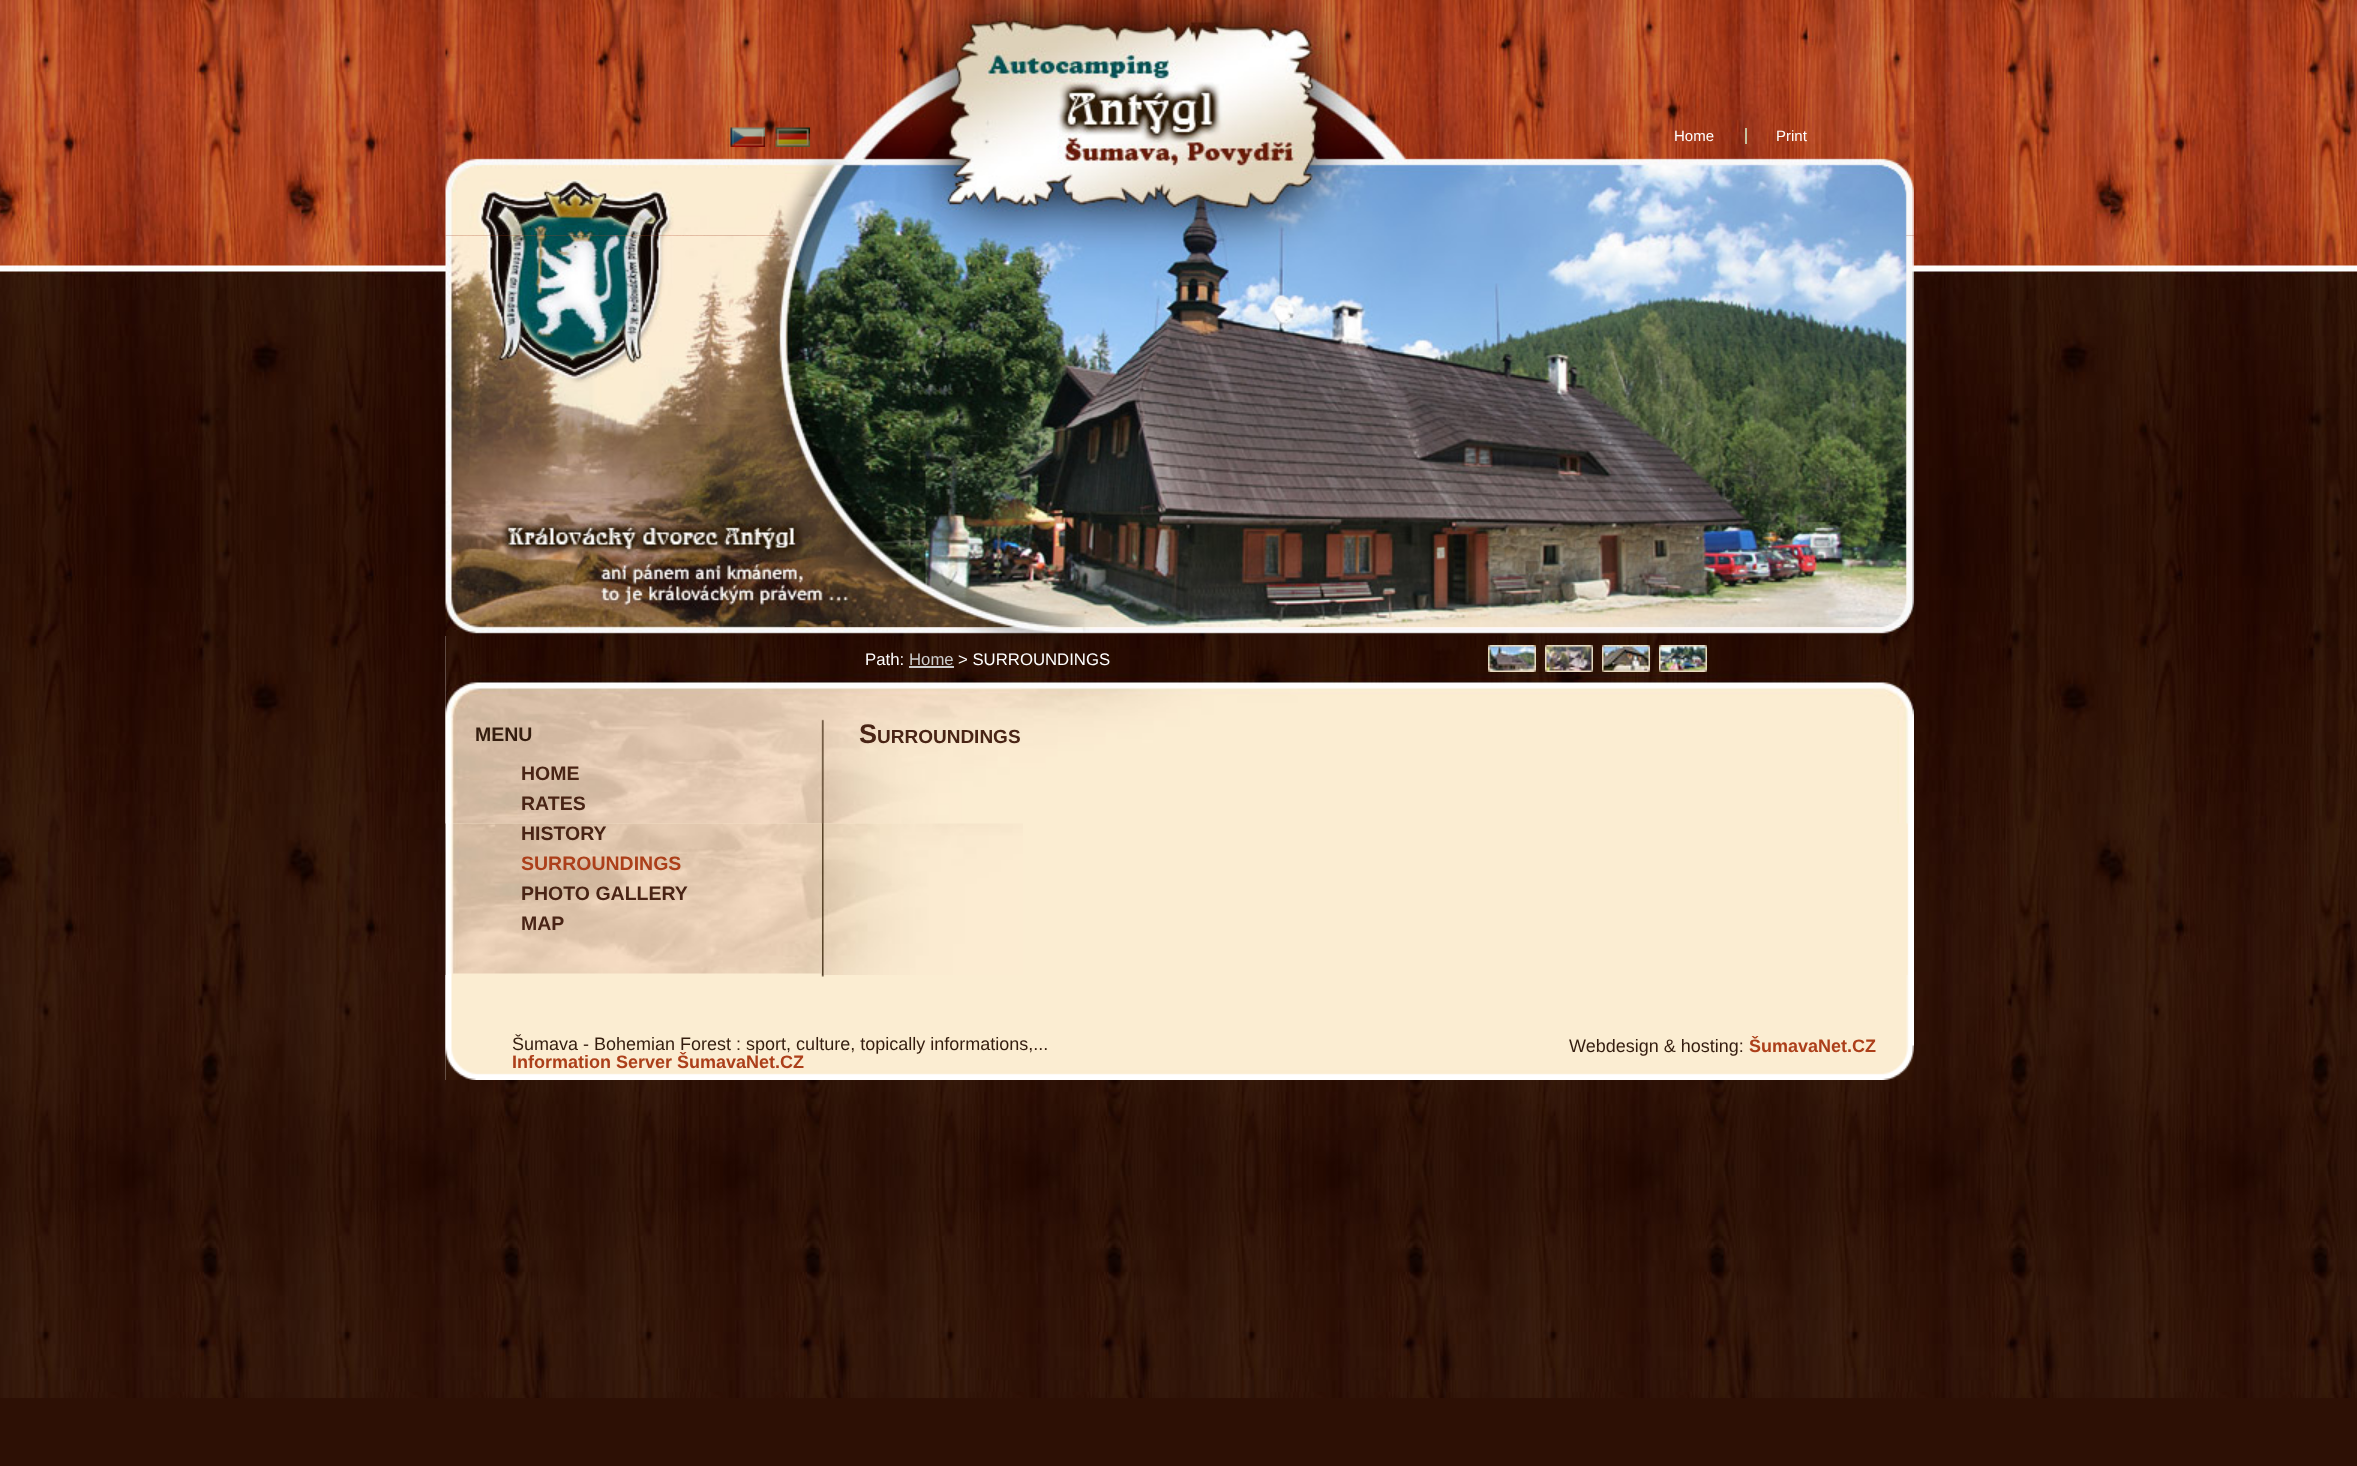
(async () => {
    const canvas = document.querySelector("canvas");
    canvas.width = 2357;
    canvas.height = 1466;
    const context = canvas.getContext("2d");
    context.miterLimit = 4;
    context.fontKerning = "normal";
    function write(s, x, y, font, color) {
        context.font = font;
        context.fillStyle = color;
        context.fillText(s, x, y);
    }
    function block(x, y, w, h, color) {
        context.fillStyle = color;
        context.fillRect(x, y, w, h);
    }
    async function photo(src, x, y, w, h) {
        const img = new Image();
        img.src = src;
        await img.decode();
        context.drawImage(img, x, y, w, h);
    }

    block(0, 0, 2357, 1466, "rgb(45, 16, 5)");
    await photo("media/1.png", 0, 0, 2357, 1398);
    await photo("media/2.png", 445, 0, 1469, 236);
    await photo("media/3.png", 730, 127, 35, 20);
    await photo("media/4.png", 775, 127, 35, 20);
    write("Home", 1674, 141, "15px Liberation Sans", "rgb(255, 255, 255)");
    block(1745, 128, 2, 16, "rgb(197, 196, 162)");
    write("Print", 1776, 141, "15px Liberation Sans", "rgb(255, 255, 255)");
    await photo("media/10.png", 445, 235, 1469, 401);
    await photo("media/5.png", 784, 163, 1123, 464);
    await photo("media/11.png", 445, 636, 1469, 444);
    await photo("media/12.png", 445, 636, 1469, 188);
    await photo("media/6.png", 1488, 645, 48, 27);
    await photo("media/7.png", 1545, 645, 48, 27);
    await photo("media/8.png", 1602, 645, 48, 27);
    await photo("media/9.png", 1659, 645, 48, 27);
    write("Path:", 865, 665, "16.75px Liberation Sans", "rgb(255, 255, 255)");
    write("Home", 909, 665, "16.75px Liberation Sans", "rgb(204, 204, 204)");
    block(909, 666, 45, 2, "rgb(204, 204, 204)");
    write("> SURROUNDINGS", 958, 665, "16.75px Liberation Sans", "rgb(255, 255, 255)");
    await photo("media/13.png", 447, 823, 375, 151);
    write("MENU", 475, 741, "bold 19.5px Liberation Sans", "rgb(52, 29, 15)");
    write("HOME", 521, 780, "bold 19.5px Liberation Sans", "rgb(73, 36, 21)");
    write("RATES", 521, 810, "bold 19.5px Liberation Sans", "rgb(73, 36, 21)");
    write("HISTORY", 521, 840, "bold 19.5px Liberation Sans", "rgb(73, 36, 21)");
    write("SURROUNDINGS", 521, 870, "bold 19.5px Liberation Sans", "rgb(172, 63, 26)");
    write("PHOTO GALLERY", 521, 900, "bold 19.5px Liberation Sans", "rgb(73, 36, 21)");
    write("MAP", 521, 930, "bold 19.5px Liberation Sans", "rgb(73, 36, 21)");
    await photo("media/14.png", 822, 823, 201, 152);
    write("S", 859, 743, "bold 27px Liberation Sans", "rgb(73, 36, 21)");
    write("URROUNDINGS", 877, 743, "bold 19px Liberation Sans", "rgb(73, 36, 21)");
    await photo("media/15.png", 445, 975, 1469, 105);
    write("Šumava - Bohemian Forest : sport, culture, topically informations,...", 512, 1050, "18px Liberation Sans", "rgb(52, 29, 15)");
    write("Information Server ŠumavaNet.CZ", 512, 1068, "bold 18px Liberation Sans", "rgb(172, 63, 26)");
    write("Webdesign & hosting:", 1569, 1052, "18px Liberation Sans", "rgb(52, 29, 15)");
    write("ŠumavaNet.CZ", 1749, 1052, "bold 18px Liberation Sans", "rgb(172, 63, 26)");
})();
